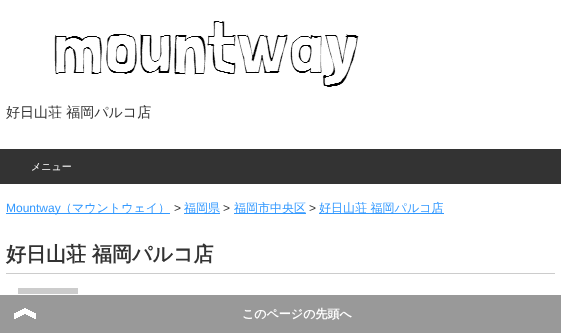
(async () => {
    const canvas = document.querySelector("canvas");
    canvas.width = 561;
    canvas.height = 333;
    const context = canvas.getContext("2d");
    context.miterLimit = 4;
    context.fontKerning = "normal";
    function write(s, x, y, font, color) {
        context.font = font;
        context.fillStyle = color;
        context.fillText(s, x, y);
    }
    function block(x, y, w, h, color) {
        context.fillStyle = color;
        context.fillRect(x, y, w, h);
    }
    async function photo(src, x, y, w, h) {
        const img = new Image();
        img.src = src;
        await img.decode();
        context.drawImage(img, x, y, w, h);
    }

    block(0, 0, 561, 333, "rgb(255, 255, 255)");
    await photo("media/1.png", 54, 21, 305, 66);
    write("好日山荘 福岡パルコ店", 6, 117, "500 14px WenQuanYi Zen Hei", "rgb(51, 51, 51)");
    block(0, 149, 561, 35, "rgb(51, 51, 51)");
    write("メニュー", 31, 170, "500 10px WenQuanYi Zen Hei", "rgb(255, 255, 255)");
    block(6, 213, 164, 1, "rgb(51, 153, 255)");
    write("Mountway", 6, 212, "12px Liberation Sans", "rgb(51, 153, 255)");
    write("（マウントウェイ）", 60, 212, "500 12px WenQuanYi Zen Hei", "rgb(51, 153, 255)");
    write(">", 174, 212, "12px Liberation Sans", "rgb(51, 51, 51)");
    block(184, 213, 36, 1, "rgb(51, 153, 255)");
    write("福岡県", 184, 212, "500 12px WenQuanYi Zen Hei", "rgb(51, 153, 255)");
    write(">", 223, 212, "12px Liberation Sans", "rgb(51, 51, 51)");
    block(234, 213, 72, 1, "rgb(51, 153, 255)");
    write("福岡市中央区", 234, 212, "500 12px WenQuanYi Zen Hei", "rgb(51, 153, 255)");
    write(">", 309, 212, "12px Liberation Sans", "rgb(51, 51, 51)");
    block(319, 213, 125, 1, "rgb(51, 153, 255)");
    write("好日山荘 福岡パルコ店", 319, 212, "500 12px WenQuanYi Zen Hei", "rgb(51, 153, 255)");
    block(6, 273, 549, 1, "rgb(204, 204, 204)");
    write("好日山荘 福岡パルコ店", 6, 261, "bold 20px WenQuanYi Zen Hei", "rgb(51, 51, 51)");
    block(18, 288, 60, 6, "rgb(204, 204, 204)");
    block(0, 295, 561, 38, "rgb(153, 153, 153)");
    await photo("media/2.png", 14, 308, 22, 11);
    write("このページの先頭へ", 242, 318, "bold 12px WenQuanYi Zen Hei", "rgb(255, 255, 255)");
})();
